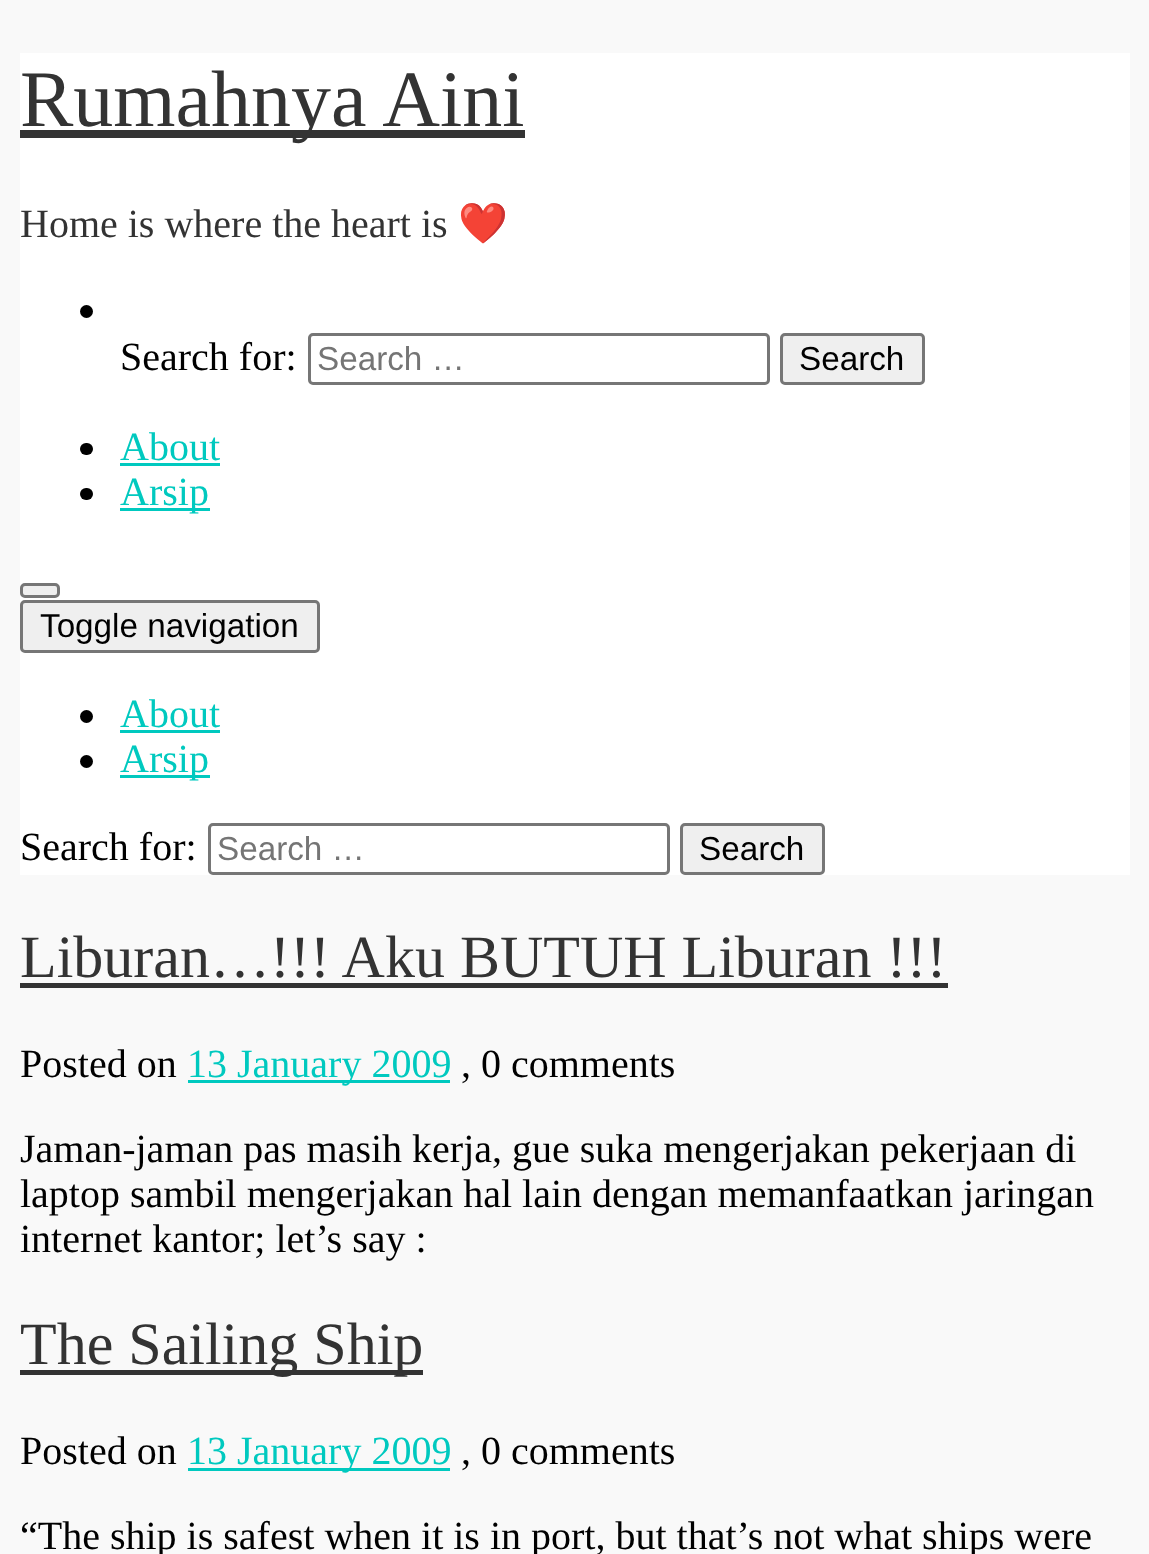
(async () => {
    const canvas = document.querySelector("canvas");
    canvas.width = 1149;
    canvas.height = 1554;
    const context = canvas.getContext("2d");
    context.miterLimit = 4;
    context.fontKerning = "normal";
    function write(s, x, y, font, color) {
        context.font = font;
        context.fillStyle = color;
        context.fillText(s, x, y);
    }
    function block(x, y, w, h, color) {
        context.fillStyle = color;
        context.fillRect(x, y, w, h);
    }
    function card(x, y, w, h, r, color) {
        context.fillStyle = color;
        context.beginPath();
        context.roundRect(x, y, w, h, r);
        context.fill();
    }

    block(0, 0, 1149, 1554, "rgb(249, 249, 249)");
    block(20, 53, 1110, 822, "rgb(255, 255, 255)");
    block(20, 130, 505, 8, "rgb(51, 51, 51)");
    write("Rumahnya Aini", 20, 126, "80px Liberation Serif", "rgb(51, 51, 51)");
    write("Home is where the heart is", 20, 237, "40px Liberation Serif", "rgb(51, 51, 51)");
    write("❤️", 458, 237, "40px Noto Color Emoji", "rgb(51, 51, 51)");
    context.fillStyle = "rgb(0, 0, 0)";
    context.beginPath();
    context.arc(86.5, 311.5, 6.5, 0, Math.PI * 2);
    context.fill();
    write("Search for:", 120, 370, "40px Liberation Serif", "rgb(0, 0, 0)");
    context.beginPath();
    context.roundRect(309.5, 334.5, 459, 49, 3.5);
    context.strokeStyle = "rgb(118, 118, 118)";
    context.lineWidth = 3;
    context.stroke();
    write("Search …", 317, 370, "33.25px Liberation Sans", "rgb(117, 117, 117)");
    context.fillStyle = "rgb(239, 239, 239)";
    context.beginPath();
    context.roundRect(781.5, 334.5, 142, 49, 3.5);
    context.fill();
    context.stroke();
    write("Search", 799, 370, "33.25px Liberation Sans", "rgb(0, 0, 0)");
    card(80, 443, 13, 12, 6, "rgb(0, 0, 0)");
    write("About", 120, 460, "40px Liberation Serif", "rgb(0, 201, 191)");
    block(120, 463, 100, 3, "rgb(0, 201, 191)");
    card(80, 488, 13, 12, 6, "rgb(0, 0, 0)");
    block(120, 508, 90, 3, "rgb(0, 201, 191)");
    write("Arsip", 120, 505, "40px Liberation Serif", "rgb(0, 201, 191)");
    context.fillStyle = "rgb(239, 239, 239)";
    context.beginPath();
    context.roundRect(21.5, 584.5, 37, 12, 3.5);
    context.fill();
    context.stroke();
    context.beginPath();
    context.roundRect(21.5, 601.5, 297, 50, 3.5);
    context.fill();
    context.stroke();
    write("Toggle navigation", 40, 637, "33.25px Liberation Sans", "rgb(0, 0, 0)");
    context.beginPath();
    context.arc(86.5, 716.5, 6.5, 0, Math.PI * 2);
    context.fill();
    write("About", 120, 727, "40px Liberation Serif", "rgb(0, 201, 191)");
    block(120, 730, 100, 3, "rgb(0, 201, 191)");
    context.fillStyle = "rgb(0, 0, 0)";
    context.beginPath();
    context.arc(86.5, 761.5, 6.5, 0, Math.PI * 2);
    context.fill();
    block(120, 775, 90, 3, "rgb(0, 201, 191)");
    write("Arsip", 120, 772, "40px Liberation Serif", "rgb(0, 201, 191)");
    write("Search for:", 20, 860, "40px Liberation Serif", "rgb(0, 0, 0)");
    context.beginPath();
    context.roundRect(209.5, 824.5, 459, 49, 3.5);
    context.stroke();
    write("Search …", 217, 860, "33.25px Liberation Sans", "rgb(117, 117, 117)");
    context.fillStyle = "rgb(239, 239, 239)";
    context.beginPath();
    context.roundRect(681.5, 824.5, 142, 49, 3.5);
    context.fill();
    context.stroke();
    write("Search", 699, 860, "33.25px Liberation Sans", "rgb(0, 0, 0)");
    write("Liburan…!!! Aku BUTUH Liburan !!!", 20, 977, "60px Liberation Serif", "rgb(51, 51, 51)");
    block(20, 983, 928, 5, "rgb(51, 51, 51)");
    write("Posted on", 20, 1077, "40px Liberation Serif", "rgb(0, 0, 0)");
    block(188, 1080, 262, 3, "rgb(0, 201, 191)");
    write("13 January 2009", 187, 1077, "40px Liberation Serif", "rgb(0, 201, 191)");
    write(", 0 comments", 461, 1077, "40px Liberation Serif", "rgb(0, 0, 0)");
    write("Jaman-jaman pas masih kerja, gue suka mengerjakan pekerjaan di", 20, 1162, "40px Liberation Serif", "rgb(0, 0, 0)");
    write("laptop sambil mengerjakan hal lain dengan memanfaatkan jaringan", 20, 1207, "40px Liberation Serif", "rgb(0, 0, 0)");
    write("internet kantor; let’s say :", 20, 1252, "40px Liberation Serif", "rgb(0, 0, 0)");
    block(20, 1370, 403, 5, "rgb(51, 51, 51)");
    write("The Sailing Ship", 20, 1364, "60px Liberation Serif", "rgb(51, 51, 51)");
    write("Posted on", 20, 1464, "40px Liberation Serif", "rgb(0, 0, 0)");
    block(188, 1468, 262, 3, "rgb(0, 201, 191)");
    write("13 January 2009", 187, 1464, "40px Liberation Serif", "rgb(0, 201, 191)");
    write(", 0 comments", 461, 1464, "40px Liberation Serif", "rgb(0, 0, 0)");
    write("“The ship is safest when it is in port, but that’s not what ships were", 20, 1549, "40px Liberation Serif", "rgb(0, 0, 0)");
})();
